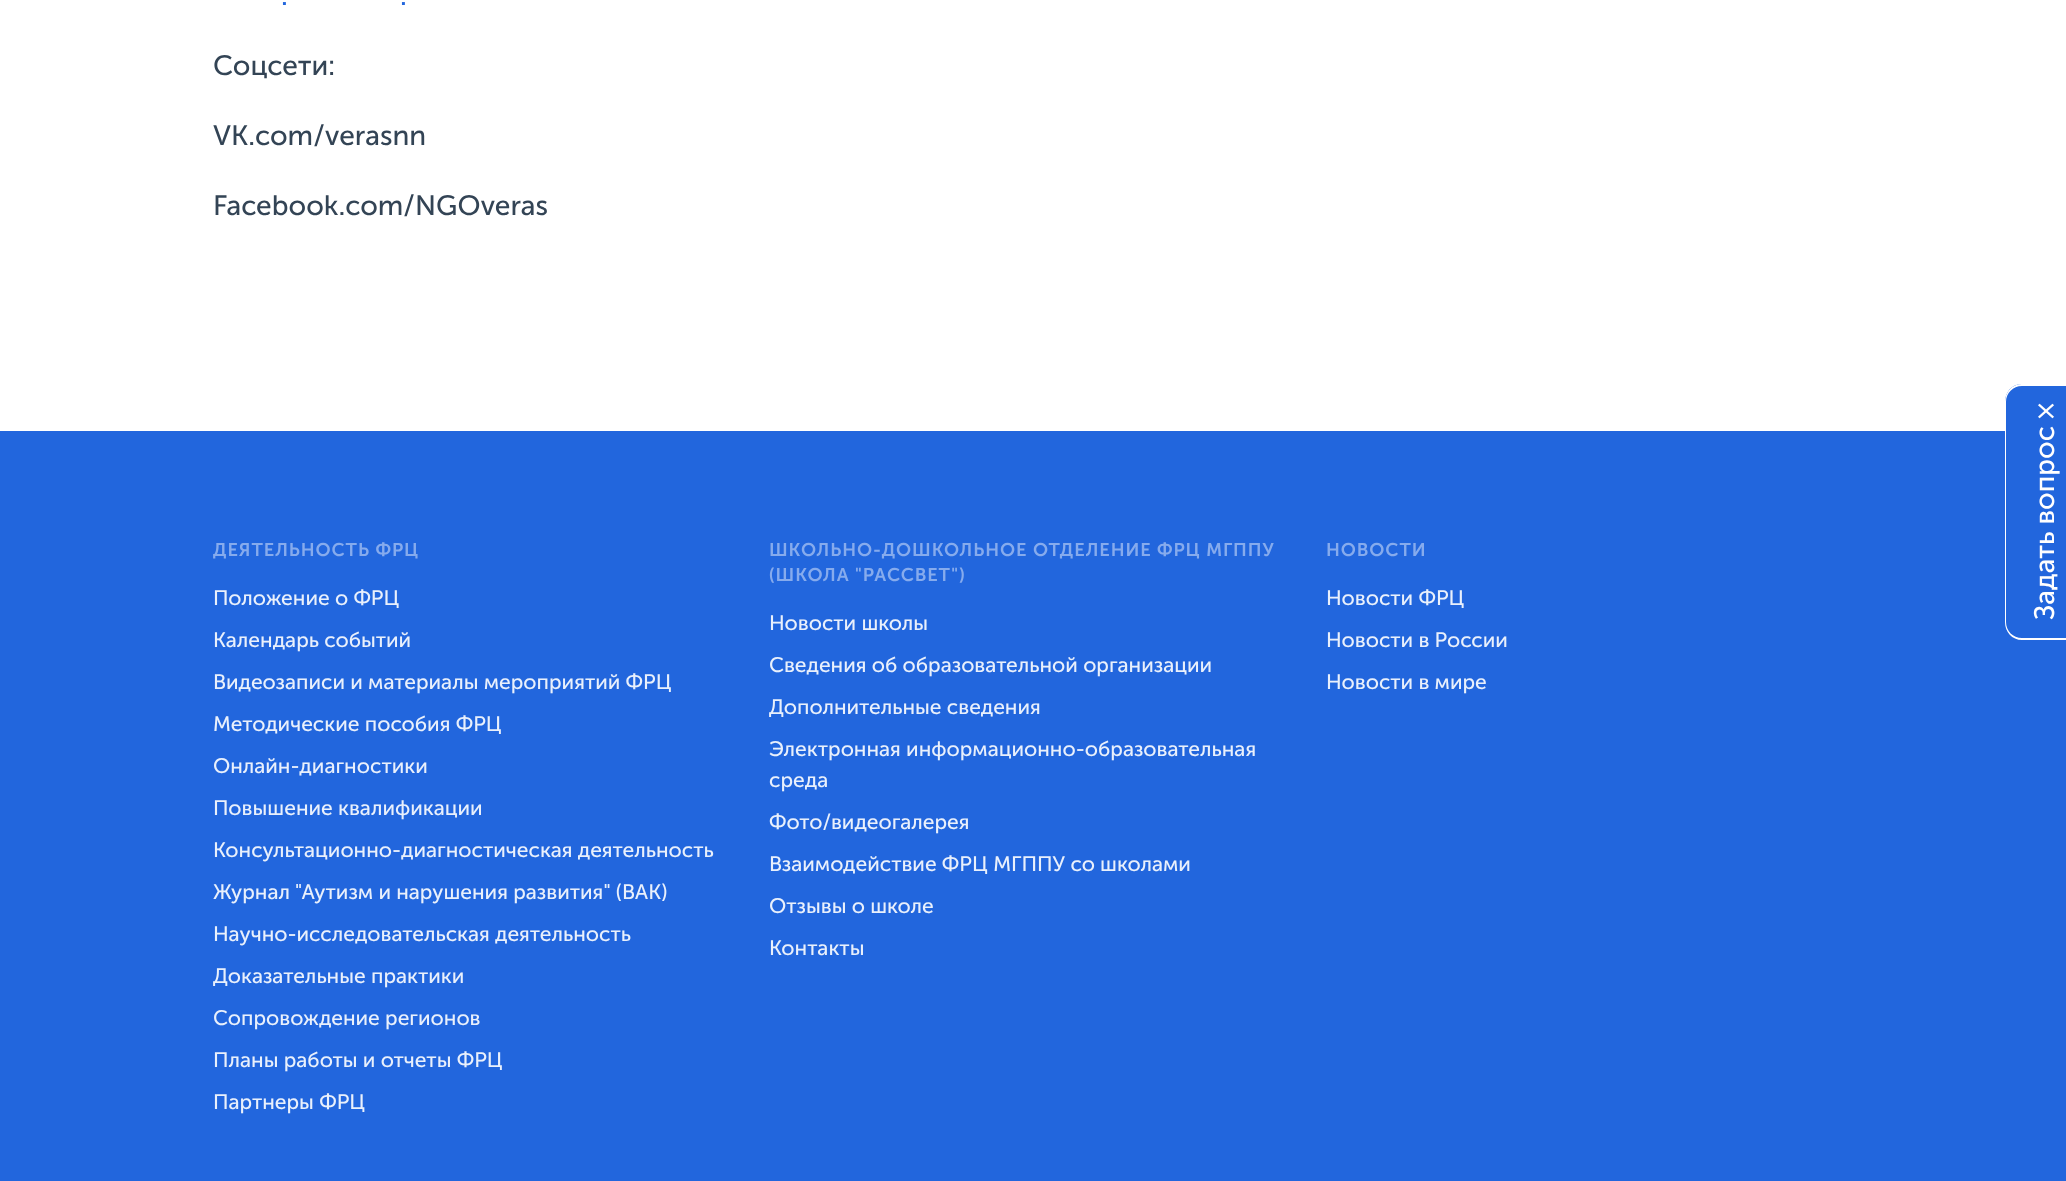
(async () => {
    const canvas = document.querySelector("canvas");
    canvas.width = 2066;
    canvas.height = 1181;
    const context = canvas.getContext("2d");
    context.miterLimit = 4;
    context.fontKerning = "normal";
    function write(s, x, y, font, color) {
        context.font = font;
        context.fillStyle = color;
        context.fillText(s, x, y);
    }
    function block(x, y, w, h, color) {
        context.fillStyle = color;
        context.fillRect(x, y, w, h);
    }

    block(0, 0, 2066, 1181, "rgb(255, 255, 255)");
    write(".", 281, 5, "28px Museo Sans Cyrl", "rgb(34, 102, 221)");
    write(".", 400, 5, "28px Museo Sans Cyrl", "rgb(34, 102, 221)");
    write("Соцсети:", 213, 75, "28px Museo Sans Cyrl", "rgb(51, 68, 85)");
    write("VK.com/verasnn", 213, 145, "28px Museo Sans Cyrl", "rgb(51, 68, 85)");
    write("Facebook.com/NGOveras", 213, 215, "28px Museo Sans Cyrl", "rgb(51, 68, 85)");
    block(0, 431, 2066, 750, "rgb(34, 102, 221)");
    context.beginPath();
    context.moveTo(2005, 622);
    context.lineTo(2005, 402);
    context.bezierCurveTo(2005, 392, 2012, 384, 2022, 384);
    context.lineTo(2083, 384);
    context.lineTo(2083, 640);
    context.lineTo(2022, 640);
    context.bezierCurveTo(2012, 640, 2005, 632, 2005, 622);
    context.closePath();
    context.fill();
    context.fillStyle = "rgb(255, 255, 255)";
    context.beginPath();
    context.moveTo(2005, 622);
    context.lineTo(2005, 402);
    context.bezierCurveTo(2005, 392, 2012, 384, 2022, 384);
    context.lineTo(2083, 384);
    context.lineTo(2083, 640);
    context.lineTo(2022, 640);
    context.bezierCurveTo(2012, 640, 2005, 632, 2005, 622);
    context.closePath();
    context.moveTo(2006, 622);
    context.lineTo(2006, 402);
    context.bezierCurveTo(2006, 393, 2013, 386, 2022, 386);
    context.lineTo(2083, 386);
    context.lineTo(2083, 638);
    context.lineTo(2022, 638);
    context.bezierCurveTo(2013, 638, 2006, 631, 2006, 622);
    context.closePath();
    context.fill("evenodd");
    context.save();
    context.translate(2054, 419);
    context.rotate(-90 * Math.PI / 180);
    context.fillText("×", 0, 0);
    context.restore();
    context.save();
    context.translate(2054, 620);
    context.rotate(-90 * Math.PI / 180);
    context.fillText("Задать вопрос", 0, 0);
    context.restore();
    context.letterSpacing = "0.9px";
    write("ДЕЯТЕЛЬНОСТЬ ФРЦ", 213, 556, "600 18.4px Museo Sans Cyrl", "rgb(134, 171, 237)");
    context.letterSpacing = "0px";
    write("Положение о ФРЦ", 213, 605, "21px Museo Sans Cyrl", "rgb(233, 240, 252)");
    write("Календарь событий", 213, 647, "21px Museo Sans Cyrl", "rgb(233, 240, 252)");
    write("Видеозаписи и материалы мероприятий ФРЦ", 213, 689, "21px Museo Sans Cyrl", "rgb(233, 240, 252)");
    write("Методические пособия ФРЦ", 213, 731, "21px Museo Sans Cyrl", "rgb(233, 240, 252)");
    write("Онлайн-диагностики", 213, 773, "21px Museo Sans Cyrl", "rgb(233, 240, 252)");
    write("Повышение квалификации", 213, 815, "21px Museo Sans Cyrl", "rgb(233, 240, 252)");
    write("Консультационно-диагностическая деятельность", 213, 857, "21px Museo Sans Cyrl", "rgb(233, 240, 252)");
    write("Журнал \"Аутизм и нарушения развития\" (ВАК)", 213, 899, "21px Museo Sans Cyrl", "rgb(233, 240, 252)");
    write("Научно-исследовательская деятельность", 213, 941, "21px Museo Sans Cyrl", "rgb(233, 240, 252)");
    write("Доказательные практики", 213, 983, "21px Museo Sans Cyrl", "rgb(233, 240, 252)");
    write("Сопровождение регионов", 213, 1025, "21px Museo Sans Cyrl", "rgb(233, 240, 252)");
    write("Планы работы и отчеты ФРЦ", 213, 1067, "21px Museo Sans Cyrl", "rgb(233, 240, 252)");
    write("Партнеры ФРЦ", 213, 1109, "21px Museo Sans Cyrl", "rgb(233, 240, 252)");
    context.letterSpacing = "0.9px";
    write("ШКОЛЬНО-ДОШКОЛЬНОЕ ОТДЕЛЕНИЕ ФРЦ МГППУ", 769, 556, "600 18.4px Museo Sans Cyrl", "rgb(134, 171, 237)");
    write("(ШКОЛА \"РАССВЕТ\")", 769, 581, "600 18.4px Museo Sans Cyrl", "rgb(134, 171, 237)");
    context.letterSpacing = "0px";
    write("Новости школы", 769, 630, "21px Museo Sans Cyrl", "rgb(233, 240, 252)");
    write("Сведения об образовательной организации", 769, 672, "21px Museo Sans Cyrl", "rgb(233, 240, 252)");
    write("Дополнительные сведения", 769, 714, "21px Museo Sans Cyrl", "rgb(233, 240, 252)");
    write("Электронная информационно-образовательная", 769, 756, "21px Museo Sans Cyrl", "rgb(233, 240, 252)");
    write("среда", 769, 787, "21px Museo Sans Cyrl", "rgb(233, 240, 252)");
    write("Фото/видеогалерея", 769, 829, "21px Museo Sans Cyrl", "rgb(233, 240, 252)");
    write("Взаимодействие ФРЦ МГППУ со школами", 769, 871, "21px Museo Sans Cyrl", "rgb(233, 240, 252)");
    write("Отзывы о школе", 769, 913, "21px Museo Sans Cyrl", "rgb(233, 240, 252)");
    write("Контакты", 769, 955, "21px Museo Sans Cyrl", "rgb(233, 240, 252)");
    context.letterSpacing = "0.9px";
    write("НОВОСТИ", 1326, 556, "600 18.4px Museo Sans Cyrl", "rgb(134, 171, 237)");
    context.letterSpacing = "0px";
    write("Новости ФРЦ", 1326, 605, "21px Museo Sans Cyrl", "rgb(233, 240, 252)");
    write("Новости в России", 1326, 647, "21px Museo Sans Cyrl", "rgb(233, 240, 252)");
    write("Новости в мире", 1326, 689, "21px Museo Sans Cyrl", "rgb(233, 240, 252)");
})();
